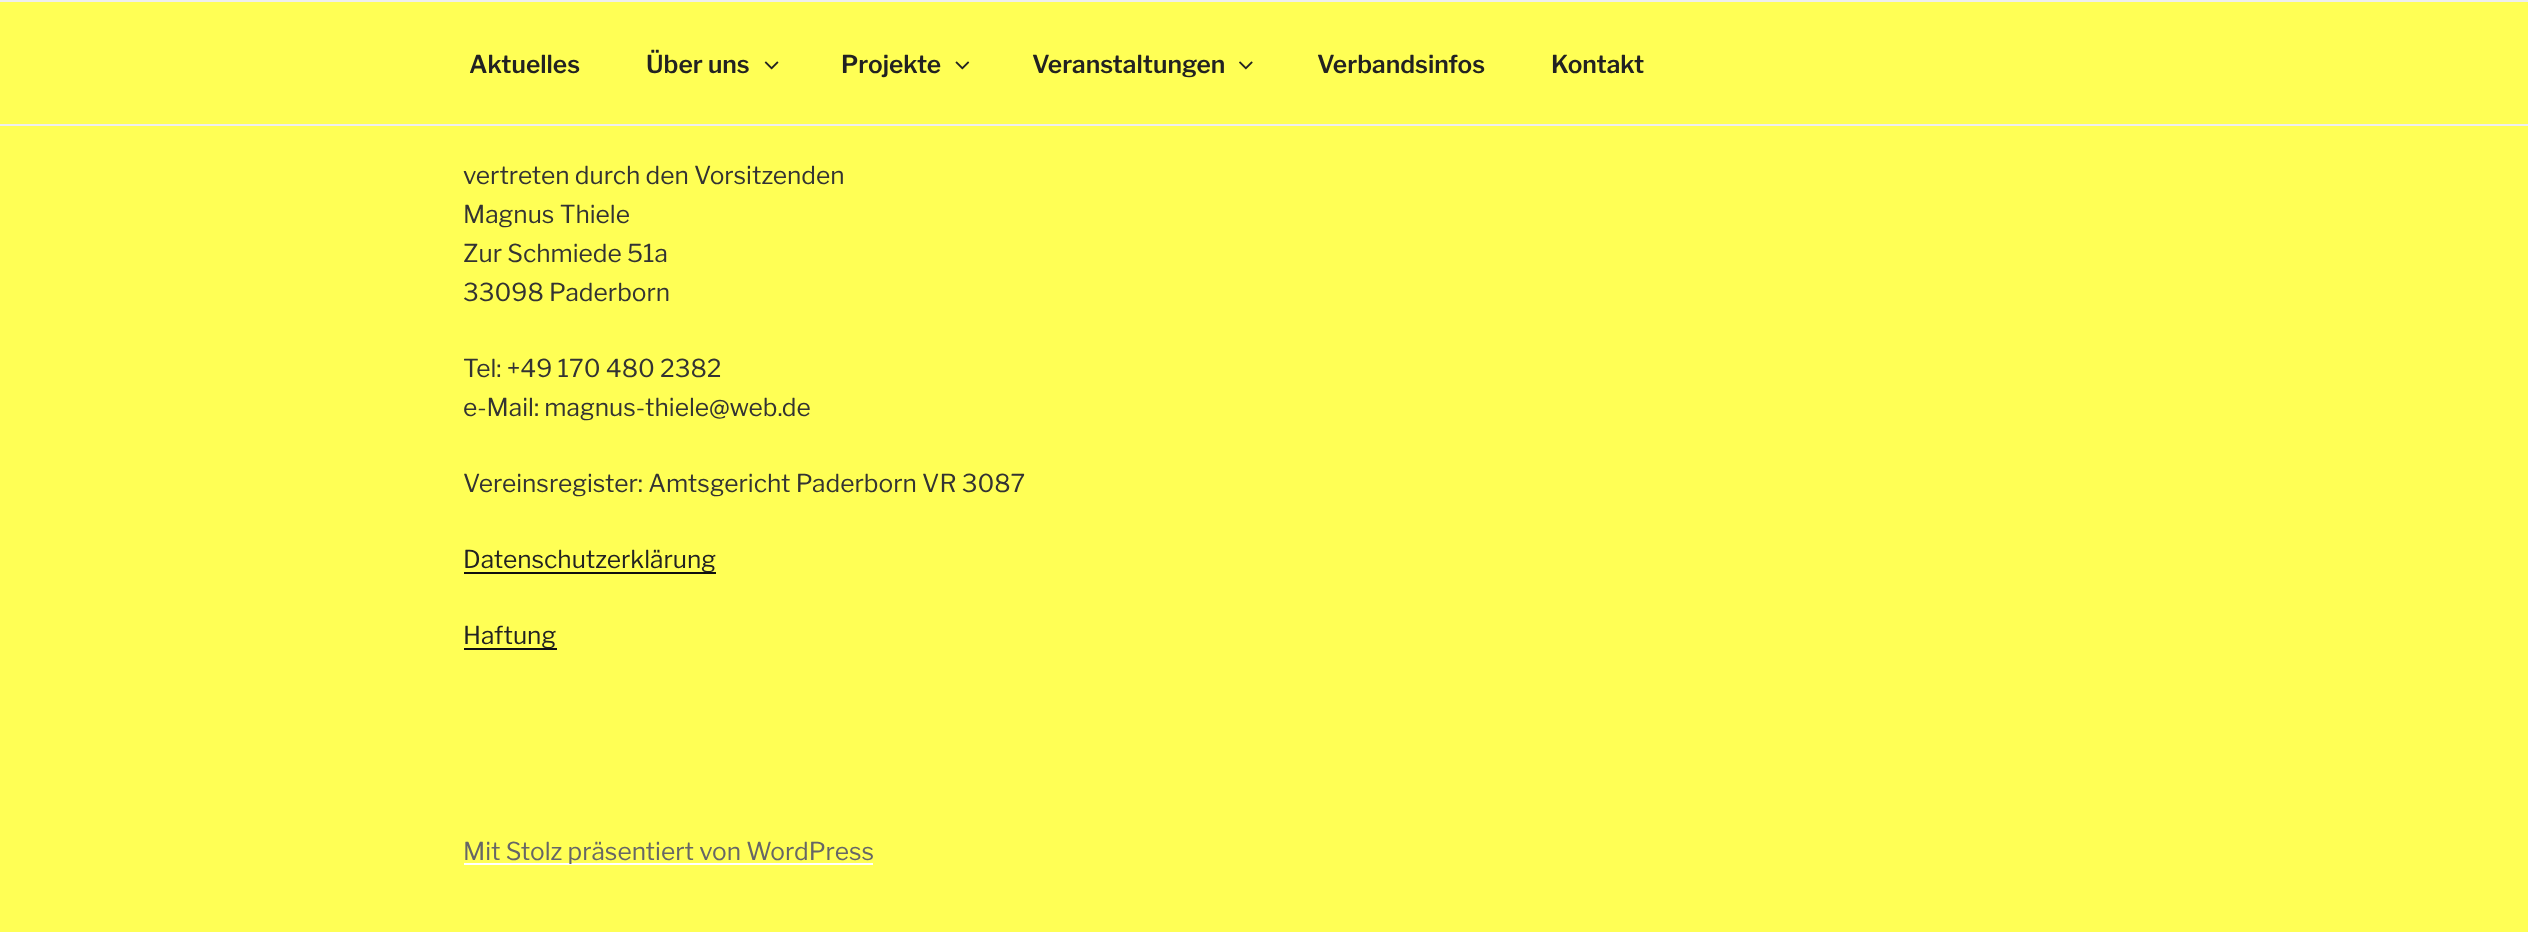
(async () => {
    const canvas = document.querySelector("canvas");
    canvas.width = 2528;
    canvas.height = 932;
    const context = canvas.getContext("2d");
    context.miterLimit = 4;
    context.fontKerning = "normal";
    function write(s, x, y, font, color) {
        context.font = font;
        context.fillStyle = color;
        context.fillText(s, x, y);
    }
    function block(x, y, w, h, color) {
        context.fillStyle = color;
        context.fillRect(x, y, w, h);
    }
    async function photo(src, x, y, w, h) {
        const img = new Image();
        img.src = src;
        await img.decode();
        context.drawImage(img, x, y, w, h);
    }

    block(0, 0, 2528, 932, "rgb(255, 255, 85)");
    block(0, 0, 2528, 2, "rgb(238, 238, 238)");
    block(0, 124, 2528, 2, "rgb(238, 238, 238)");
    write("Aktuelles", 469, 73, "100 24.5px 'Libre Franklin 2'", "rgb(34, 34, 34)");
    write("Über uns", 646, 73, "100 24.5px 'Libre Franklin 2'", "rgb(34, 34, 34)");
    await photo("media/1.png", 764, 61, 15, 9);
    write("Projekte", 841, 73, "100 24.5px 'Libre Franklin 2'", "rgb(34, 34, 34)");
    await photo("media/2.png", 955, 61, 15, 9);
    write("Veranstaltungen", 1032, 73, "100 24.5px 'Libre Franklin 2'", "rgb(34, 34, 34)");
    await photo("media/3.png", 1239, 61, 14, 9);
    write("Verbandsinfos", 1317, 73, "100 24.5px 'Libre Franklin 2'", "rgb(34, 34, 34)");
    write("Kontakt", 1551, 73, "100 24.5px 'Libre Franklin 2'", "rgb(34, 34, 34)");
    write("vertreten durch den Vorsitzenden", 463, 184, "100 24.5px Libre Franklin", "rgb(51, 51, 51)");
    write("Magnus Thiele", 463, 223, "100 24.5px Libre Franklin", "rgb(51, 51, 51)");
    write("Zur Schmiede 51a", 463, 262, "100 24.5px Libre Franklin", "rgb(51, 51, 51)");
    write("33098 Paderborn", 463, 301, "100 24.5px Libre Franklin", "rgb(51, 51, 51)");
    write("Tel: +49 170 480 2382", 463, 377, "100 24.5px Libre Franklin", "rgb(51, 51, 51)");
    write("e-Mail: magnus-thiele@web.de", 463, 416, "100 24.5px Libre Franklin", "rgb(51, 51, 51)");
    write("Vereinsregister: Amtsgericht Paderborn VR 3087", 463, 492, "100 24.5px Libre Franklin", "rgb(51, 51, 51)");
    block(464, 572, 252, 2, "rgb(15, 15, 15)");
    write("Datenschutzerklärung", 463, 568, "100 24.5px Libre Franklin", "rgb(34, 34, 34)");
    block(464, 648, 93, 2, "rgb(15, 15, 15)");
    write("Haftung", 463, 644, "100 24.5px Libre Franklin", "rgb(34, 34, 34)");
    block(464, 863, 409, 2, "rgb(255, 255, 255)");
    write("Mit Stolz präsentiert von WordPress", 463, 860, "100 24.5px Libre Franklin", "rgb(102, 102, 102)");
})();
